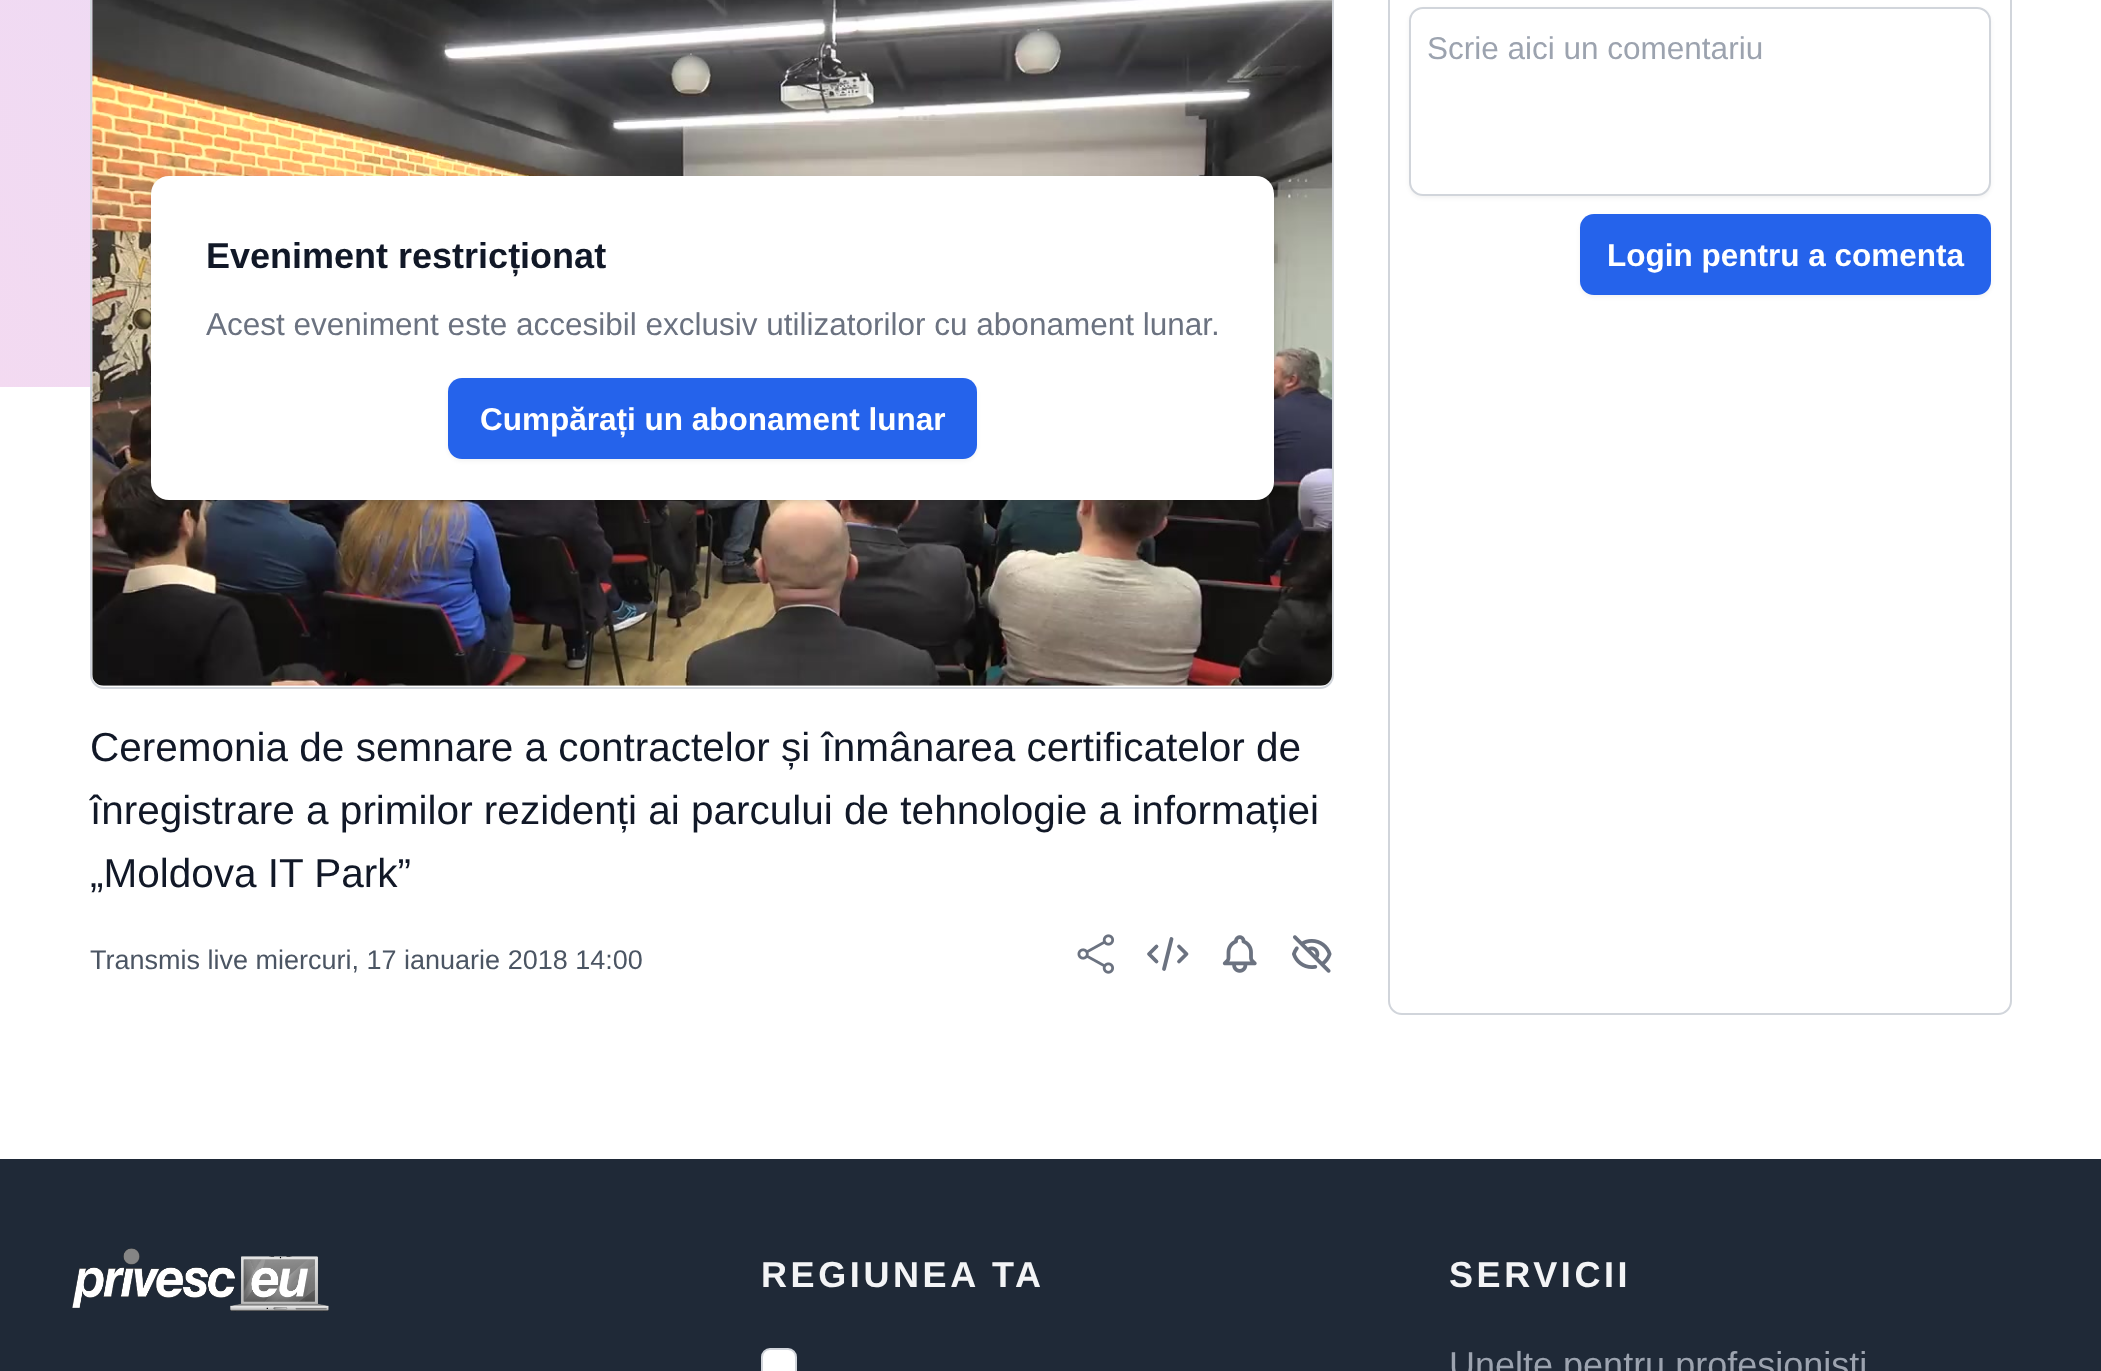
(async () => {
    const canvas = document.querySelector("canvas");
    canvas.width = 2101;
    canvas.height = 1371;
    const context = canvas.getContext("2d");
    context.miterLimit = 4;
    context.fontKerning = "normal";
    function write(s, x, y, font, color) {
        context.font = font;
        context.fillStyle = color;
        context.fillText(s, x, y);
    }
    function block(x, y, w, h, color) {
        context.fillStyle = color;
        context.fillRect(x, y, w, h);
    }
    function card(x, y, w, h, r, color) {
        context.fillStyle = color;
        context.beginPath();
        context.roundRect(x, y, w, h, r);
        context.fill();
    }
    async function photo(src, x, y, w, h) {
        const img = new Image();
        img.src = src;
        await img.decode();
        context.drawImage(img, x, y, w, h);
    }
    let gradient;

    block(0, 0, 2101, 1371, "rgb(255, 255, 255)");
    context.save();
    context.beginPath();
    context.rect(0, 0, 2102, 387);
    context.clip();
    gradient = context.createLinearGradient(-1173, 274, 1115, -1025);
    gradient.addColorStop(0, "rgb(255, 217, 233)");
    gradient.addColorStop(1, "rgb(222, 220, 255)");
    context.fillStyle = gradient;
    context.beginPath();
    context.moveTo(558, -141);
    context.lineTo(194, 594);
    context.lineTo(-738, -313);
    context.lineTo(-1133, -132);
    context.lineTo(-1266, -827);
    context.lineTo(-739, -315);
    context.lineTo(-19, -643);
    context.lineTo(-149, -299);
    context.lineTo(-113, -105);
    context.lineTo(106, -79);
    context.lineTo(611, -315);
    context.lineTo(1028, -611);
    context.lineTo(1150, -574);
    context.lineTo(1216, -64);
    context.lineTo(1007, 427);
    context.closePath();
    context.fill();
    context.restore();
    context.beginPath();
    context.roundRect(1389, -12, 622, 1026, 13);
    context.strokeStyle = "rgb(209, 213, 219)";
    context.lineWidth = 2;
    context.stroke();
    context.fillStyle = "rgba(0, 0, 0, 0.05)";
    context.filter = "blur(2px)";
    context.beginPath();
    context.roundRect(1409, 9, 582, 189, 14);
    context.fill();
    context.filter = "none";
    context.fillStyle = "rgb(255, 255, 255)";
    context.beginPath();
    context.roundRect(1410, 8, 580, 187, 13);
    context.fill();
    context.stroke();
    write("Scrie aici un comentariu", 1427, 59, "31.5px Liberation Sans", "rgb(156, 163, 175)");
    context.fillStyle = "rgba(0, 0, 0, 0.05)";
    context.filter = "blur(2px)";
    context.beginPath();
    context.roundRect(1580, 216, 411, 81, 14);
    context.fill();
    context.filter = "none";
    card(1580, 214, 411, 81, 14, "rgb(37, 99, 235)");
    write("Login pentru a comenta", 1607, 266, "bold 31.5px Liberation Sans", "rgb(255, 255, 255)");
    context.beginPath();
    context.roundRect(91, -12, 1242, 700, 13);
    context.stroke();
    await photo("media/1.png", 92, 0, 1240, 686);
    context.fillStyle = "rgba(0, 0, 0, 0.1)";
    context.filter = "blur(2px)";
    context.beginPath();
    context.roundRect(153, 180, 1118, 320, 16);
    context.fill();
    context.filter = "none";
    context.filter = "blur(3.5px)";
    context.beginPath();
    context.roundRect(151, 178, 1123, 324, 18);
    context.fill();
    context.filter = "none";
    card(151, 176, 1123, 324, 18, "rgb(255, 255, 255)");
    write("Eveniment restricționat", 206, 268, "bold 36px Liberation Sans", "rgb(17, 24, 39)");
    write("Acest eveniment este accesibil exclusiv utilizatorilor cu abonament lunar.", 206, 335, "31.5px Liberation Sans", "rgb(107, 114, 128)");
    context.fillStyle = "rgba(0, 0, 0, 0.05)";
    context.filter = "blur(2px)";
    context.beginPath();
    context.roundRect(448, 380, 529, 81, 14);
    context.fill();
    context.filter = "none";
    card(448, 378, 529, 81, 14, "rgb(37, 99, 235)");
    write("Cumpărați un abonament lunar", 480, 430, "bold 31.5px Liberation Sans", "rgb(255, 255, 255)");
    write("Ceremonia de semnare a contractelor și înmânarea certificatelor de", 90, 761, "40.5px Liberation Sans", "rgb(17, 24, 39)");
    write("înregistrare a primilor rezidenți ai parcului de tehnologie a informației", 90, 824, "40.5px Liberation Sans", "rgb(17, 24, 39)");
    write("„Moldova IT Park”", 90, 887, "40.5px Liberation Sans", "rgb(17, 24, 39)");
    write("Transmis live miercuri, 17 ianuarie 2018 14:00", 90, 969, "27px Liberation Sans", "rgb(75, 85, 99)");
    await photo("media/2.png", 1077, 934, 37, 40);
    context.beginPath();
    context.moveTo(1164, 969);
    context.lineTo(1171.5, 939);
    context.moveTo(1179, 946.5);
    context.lineTo(1186.5, 954);
    context.lineTo(1179, 961.5);
    context.moveTo(1156.5, 961.5);
    context.lineTo(1149, 954);
    context.lineTo(1156.5, 946.5);
    context.strokeStyle = "rgb(107, 114, 128)";
    context.lineWidth = 3.8;
    context.lineCap = "round";
    context.lineJoin = "round";
    context.stroke();
    await photo("media/3.png", 1222, 935, 35, 38);
    await photo("media/4.png", 1292, 935, 40, 38);
    block(0, 1159, 2101, 212, "rgb(31, 41, 55)");
    await photo("media/5.png", 72, 1248, 257, 64);
    context.letterSpacing = "3.6px";
    write("REGIUNEA TA", 761, 1287, "bold 36px Liberation Sans", "rgb(243, 244, 246)");
    context.fillStyle = "rgb(255, 255, 255)";
    context.beginPath();
    context.roundRect(762, 1349, 34, 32, 8);
    context.fill();
    context.strokeStyle = "rgb(209, 213, 219)";
    context.lineWidth = 2;
    context.lineJoin = "miter";
    context.stroke();
    write("SERVICII", 1449, 1287, "bold 36px Liberation Sans", "rgb(243, 244, 246)");
    context.letterSpacing = "0px";
    write("Unelte pentru profesioniști", 1449, 1377, "36px Liberation Sans", "rgb(156, 163, 175)");
})();
